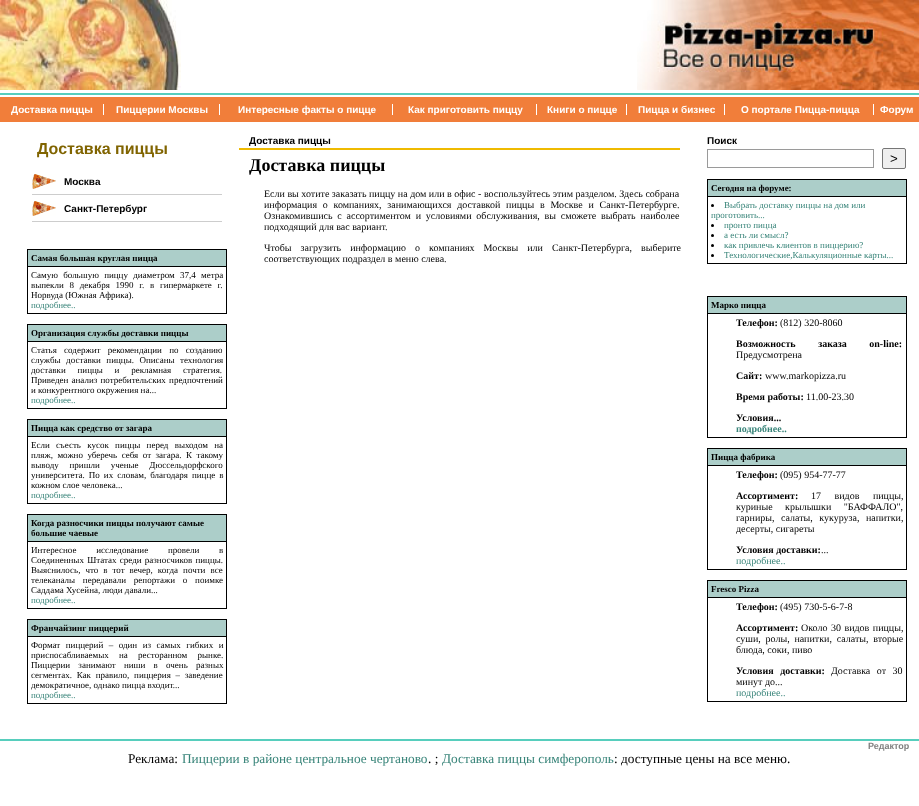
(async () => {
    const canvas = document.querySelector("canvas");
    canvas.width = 919;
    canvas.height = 806;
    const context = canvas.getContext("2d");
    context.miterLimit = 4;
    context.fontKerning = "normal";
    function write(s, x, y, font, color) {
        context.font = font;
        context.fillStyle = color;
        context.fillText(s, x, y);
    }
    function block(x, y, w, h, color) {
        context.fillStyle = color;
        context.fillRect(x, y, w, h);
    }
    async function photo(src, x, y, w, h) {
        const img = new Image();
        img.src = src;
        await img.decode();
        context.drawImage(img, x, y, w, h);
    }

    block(0, 0, 919, 806, "rgb(255, 255, 255)");
    await photo("media/1.png", 0, 0, 181, 90);
    await photo("media/2.png", 637, 0, 282, 90);
    block(0, 93, 919, 2, "rgb(87, 206, 189)");
    block(0, 97, 919, 25, "rgb(241, 126, 58)");
    block(103, 104, 1, 11, "rgb(255, 255, 255)");
    write("Доставка пиццы", 11, 113, "bold 10px Liberation Sans", "rgb(255, 255, 255)");
    block(219, 104, 1, 11, "rgb(255, 255, 255)");
    write("Пиццерии Москвы", 116, 113, "bold 10px Liberation Sans", "rgb(255, 255, 255)");
    block(392, 104, 1, 11, "rgb(255, 255, 255)");
    write("Интересные факты о пицце", 238, 113, "bold 10px Liberation Sans", "rgb(255, 255, 255)");
    block(536, 104, 1, 11, "rgb(255, 255, 255)");
    write("Как приготовить пиццу", 408, 113, "bold 10px Liberation Sans", "rgb(255, 255, 255)");
    block(626, 104, 1, 11, "rgb(255, 255, 255)");
    write("Книги о пицце", 547, 113, "bold 10px Liberation Sans", "rgb(255, 255, 255)");
    block(724, 104, 1, 11, "rgb(255, 255, 255)");
    write("Пицца и бизнес", 638, 113, "bold 10px Liberation Sans", "rgb(255, 255, 255)");
    block(873, 104, 1, 11, "rgb(255, 255, 255)");
    write("О портале Пицца-пицца", 741, 113, "bold 10px Liberation Sans", "rgb(255, 255, 255)");
    write("Форум", 880, 113, "bold 10px Liberation Sans", "rgb(255, 255, 255)");
    write("Доставка пиццы", 37, 154, "bold 16px Liberation Sans", "rgb(128, 100, 0)");
    await photo("media/3.png", 32, 174, 24, 15);
    write("Москва", 64, 185, "bold 10px Liberation Sans", "rgb(0, 0, 0)");
    block(32, 194, 190, 1, "rgb(205, 205, 205)");
    await photo("media/3.png", 32, 201, 24, 15);
    write("Санкт-Петербург", 64, 212, "bold 10px Liberation Sans", "rgb(0, 0, 0)");
    block(32, 221, 190, 1, "rgb(205, 205, 205)");
    context.strokeStyle = "rgb(0, 0, 0)";
    context.strokeRect(27.5, 249.5, 199, 64);
    block(28, 250, 198, 16, "rgb(172, 206, 201)");
    block(28, 266, 198, 1, "rgb(0, 0, 0)");
    write("Самая большая круглая пицца", 31, 261, "bold 9px Liberation Serif", "rgb(0, 0, 0)");
    context.wordSpacing = "3px";
    write("Самую большую пиццу диаметром 37,4 метра", 31, 278, "9px Liberation Serif", "rgb(0, 0, 0)");
    context.wordSpacing = "3.5px";
    write("выпекли 8 декабря 1990 г. в гипермаркете г.", 31, 288, "9px Liberation Serif", "rgb(0, 0, 0)");
    context.wordSpacing = "0px";
    write("Норвуда (Южная Африка).", 31, 298, "9px Liberation Serif", "rgb(0, 0, 0)");
    write("подробнее..", 31, 308, "9px Liberation Serif", "rgb(56, 132, 121)");
    context.strokeRect(27.5, 324.5, 199, 84);
    block(28, 325, 198, 16, "rgb(172, 206, 201)");
    block(28, 341, 198, 1, "rgb(0, 0, 0)");
    write("Организация службы доставки пиццы", 31, 336, "bold 9px Liberation Serif", "rgb(0, 0, 0)");
    context.wordSpacing = "5px";
    write("Статья содержит рекомендации по созданию", 31, 353, "9px Liberation Serif", "rgb(0, 0, 0)");
    context.wordSpacing = "3.25px";
    write("службы доставки пиццы. Описаны технология", 31, 363, "9px Liberation Serif", "rgb(0, 0, 0)");
    context.wordSpacing = "9.5px";
    write("доставки пиццы и рекламная стратегия.", 31, 373, "9px Liberation Serif", "rgb(0, 0, 0)");
    context.wordSpacing = "1px";
    write("Приведен анализ потребительских предпочтений", 31, 383, "9px Liberation Serif", "rgb(0, 0, 0)");
    context.wordSpacing = "0px";
    write("и конкурентного окружения на...", 31, 393, "9px Liberation Serif", "rgb(0, 0, 0)");
    write("подробнее..", 31, 403, "9px Liberation Serif", "rgb(56, 132, 121)");
    context.strokeRect(27.5, 419.5, 199, 84);
    block(28, 420, 198, 16, "rgb(172, 206, 201)");
    block(28, 436, 198, 1, "rgb(0, 0, 0)");
    write("Пицца как средство от загара", 31, 431, "bold 9px Liberation Serif", "rgb(0, 0, 0)");
    context.wordSpacing = "4px";
    write("Если съесть кусок пиццы перед выходом на", 31, 448, "9px Liberation Serif", "rgb(0, 0, 0)");
    context.wordSpacing = "2.25px";
    write("пляж, можно уберечь себя от загара. К такому", 31, 458, "9px Liberation Serif", "rgb(0, 0, 0)");
    context.wordSpacing = "8.5px";
    write("выводу пришли ученые Дюссельдорфского", 31, 468, "9px Liberation Serif", "rgb(0, 0, 0)");
    context.wordSpacing = "1.75px";
    write("университета. По их словам, благодаря пицце в", 31, 478, "9px Liberation Serif", "rgb(0, 0, 0)");
    context.wordSpacing = "0px";
    write("кожном слое человека...", 31, 488, "9px Liberation Serif", "rgb(0, 0, 0)");
    write("подробнее..", 31, 498, "9px Liberation Serif", "rgb(56, 132, 121)");
    context.strokeRect(27.5, 514.5, 199, 94);
    block(28, 515, 198, 26, "rgb(172, 206, 201)");
    block(28, 541, 198, 1, "rgb(0, 0, 0)");
    write("Когда разносчики пиццы получают самые", 31, 526, "bold 9px Liberation Serif", "rgb(0, 0, 0)");
    write("большие чаевые", 31, 536, "bold 9px Liberation Serif", "rgb(0, 0, 0)");
    context.wordSpacing = "17.5px";
    write("Интересное исследование провели в", 31, 553, "9px Liberation Serif", "rgb(0, 0, 0)");
    context.wordSpacing = "1px";
    write("Соединенных Штатах среди разносчиков пиццы.", 31, 563, "9px Liberation Serif", "rgb(0, 0, 0)");
    context.wordSpacing = "2.75px";
    write("Выяснилось, что в тот вечер, когда почти все", 31, 573, "9px Liberation Serif", "rgb(0, 0, 0)");
    context.wordSpacing = "5.5px";
    write("телеканалы передавали репортажи о поимке", 31, 583, "9px Liberation Serif", "rgb(0, 0, 0)");
    context.wordSpacing = "0px";
    write("Саддама Хусейна, люди давали...", 31, 593, "9px Liberation Serif", "rgb(0, 0, 0)");
    write("подробнее..", 31, 603, "9px Liberation Serif", "rgb(56, 132, 121)");
    context.strokeRect(27.5, 619.5, 199, 84);
    block(28, 620, 198, 16, "rgb(172, 206, 201)");
    block(28, 636, 198, 1, "rgb(0, 0, 0)");
    write("Франчайзинг пиццерий", 31, 631, "bold 9px Liberation Serif", "rgb(0, 0, 0)");
    context.wordSpacing = "3.25px";
    write("Формат пиццерий – один из самых гибких и", 31, 648, "9px Liberation Serif", "rgb(0, 0, 0)");
    context.wordSpacing = "8px";
    write("приспосабливаемых на ресторанном рынке.", 31, 658, "9px Liberation Serif", "rgb(0, 0, 0)");
    context.wordSpacing = "6px";
    write("Пиццерии занимают ниши в очень разных", 31, 668, "9px Liberation Serif", "rgb(0, 0, 0)");
    context.wordSpacing = "2.5px";
    write("сегментах. Как правило, пиццерия – заведение", 31, 678, "9px Liberation Serif", "rgb(0, 0, 0)");
    context.wordSpacing = "0px";
    write("демократичное, однако пицца входит...", 31, 688, "9px Liberation Serif", "rgb(0, 0, 0)");
    write("подробнее..", 31, 698, "9px Liberation Serif", "rgb(56, 132, 121)");
    write("Доставка пиццы", 249, 144, "bold 10px Liberation Sans", "rgb(0, 0, 0)");
    block(239, 148, 441, 2, "rgb(239, 186, 0)");
    write("Доставка пиццы", 249, 171, "bold 18px Liberation Serif", "rgb(0, 0, 0)");
    write("Если вы хотите заказать пиццу на дом или в офис - воспользуйтесь этим разделом. Здесь собрана", 264, 197, "10px Liberation Serif", "rgb(0, 0, 0)");
    context.wordSpacing = "3.25px";
    write("информация о компаниях, занимающихся доставкой пиццы в Москве и Санкт-Петербурге.", 264, 208, "10px Liberation Serif", "rgb(0, 0, 0)");
    context.wordSpacing = "2.25px";
    write("Ознакомившись с ассортиментом и условиями обслуживания, вы сможете выбрать наиболее", 264, 219, "10px Liberation Serif", "rgb(0, 0, 0)");
    context.wordSpacing = "0px";
    write("подходящий для вас вариант.", 264, 230, "10px Liberation Serif", "rgb(0, 0, 0)");
    context.wordSpacing = "6.5px";
    write("Чтобы загрузить информацию о компаниях Москвы или Санкт-Петербурга, выберите", 264, 251, "10px Liberation Serif", "rgb(0, 0, 0)");
    context.wordSpacing = "0px";
    write("соответствующих подраздел в меню слева.", 264, 262, "10px Liberation Serif", "rgb(0, 0, 0)");
    write("Поиск", 707, 144, "bold 10px Liberation Sans", "rgb(0, 0, 0)");
    context.strokeStyle = "rgb(154, 154, 154)";
    context.strokeRect(707.5, 149.5, 166, 18);
    context.fillStyle = "rgb(239, 239, 239)";
    context.beginPath();
    context.roundRect(882.5, 148.5, 23, 20, 1.5);
    context.fill();
    context.strokeStyle = "rgb(118, 118, 118)";
    context.stroke();
    write(">", 890, 163, "13.3px Liberation Sans", "rgb(0, 0, 0)");
    context.strokeStyle = "rgb(0, 0, 0)";
    context.strokeRect(707.5, 179.5, 199, 84);
    block(708, 180, 198, 16, "rgb(172, 206, 201)");
    block(708, 196, 198, 1, "rgb(0, 0, 0)");
    write("Сегодня на форуме:", 711, 191, "bold 9px Liberation Serif", "rgb(0, 0, 0)");
    context.beginPath();
    context.arc(712.5, 205.5, 1.5, 0, Math.PI * 2);
    context.fill();
    write("Выбрать доставку пиццы на дом или", 724, 208, "9px Liberation Serif", "rgb(56, 132, 121)");
    write("проготовить...", 711, 218, "9px Liberation Serif", "rgb(56, 132, 121)");
    context.fillStyle = "rgb(0, 0, 0)";
    context.beginPath();
    context.arc(712.5, 225.5, 1.5, 0, Math.PI * 2);
    context.fill();
    write("пронто пицца", 724, 228, "9px Liberation Serif", "rgb(56, 132, 121)");
    context.fillStyle = "rgb(0, 0, 0)";
    context.beginPath();
    context.arc(712.5, 235.5, 1.5, 0, Math.PI * 2);
    context.fill();
    write("а есть ли смысл?", 724, 238, "9px Liberation Serif", "rgb(56, 132, 121)");
    context.fillStyle = "rgb(0, 0, 0)";
    context.beginPath();
    context.arc(712.5, 245.5, 1.5, 0, Math.PI * 2);
    context.fill();
    write("как привлечь клиентов в пиццерию?", 724, 248, "9px Liberation Serif", "rgb(56, 132, 121)");
    context.fillStyle = "rgb(0, 0, 0)";
    context.beginPath();
    context.arc(712.5, 255.5, 1.5, 0, Math.PI * 2);
    context.fill();
    write("Технологические,Калькуляционные карты...", 724, 258, "9px Liberation Serif", "rgb(56, 132, 121)");
    context.strokeRect(707.5, 296.5, 199, 141);
    block(708, 297, 198, 16, "rgb(172, 206, 201)");
    block(708, 313, 198, 1, "rgb(0, 0, 0)");
    write("Марко пицца", 711, 308, "bold 9px Liberation Serif", "rgb(0, 0, 0)");
    write("Телефон:", 736, 326, "bold 10px Liberation Serif", "rgb(0, 0, 0)");
    write("(812) 320-8060", 780, 326, "10px Liberation Serif", "rgb(0, 0, 0)");
    context.wordSpacing = "20px";
    write("Возможность заказа on-line:", 736, 347, "bold 10px Liberation Serif", "rgb(0, 0, 0)");
    context.wordSpacing = "0px";
    write("Предусмотрена", 736, 358, "10px Liberation Serif", "rgb(0, 0, 0)");
    write("Сайт:", 736, 379, "bold 10px Liberation Serif", "rgb(0, 0, 0)");
    write("www.markopizza.ru", 765, 379, "10px Liberation Serif", "rgb(0, 0, 0)");
    write("Время pаботы:", 736, 400, "bold 10px Liberation Serif", "rgb(0, 0, 0)");
    write("11.00-23.30", 806, 400, "10px Liberation Serif", "rgb(0, 0, 0)");
    write("Условия...", 736, 421, "bold 10px Liberation Serif", "rgb(0, 0, 0)");
    write("подробнее..", 736, 432, "bold 10px Liberation Serif", "rgb(56, 132, 121)");
    context.strokeRect(707.5, 448.5, 199, 121);
    block(708, 449, 198, 16, "rgb(172, 206, 201)");
    block(708, 465, 198, 1, "rgb(0, 0, 0)");
    write("Пицца фабрика", 711, 460, "bold 9px Liberation Serif", "rgb(0, 0, 0)");
    write("Телефон:", 736, 478, "bold 10px Liberation Serif", "rgb(0, 0, 0)");
    write("(095) 954-77-77", 780, 478, "10px Liberation Serif", "rgb(0, 0, 0)");
    write("Ассортимент:", 736, 499, "bold 10px Liberation Serif", "rgb(0, 0, 0)");
    context.wordSpacing = "11px";
    write("17 видов пиццы,", 811, 499, "10px Liberation Serif", "rgb(0, 0, 0)");
    context.wordSpacing = "10px";
    write("куриные крылышки \"БАФФАЛО\",", 736, 510, "10px Liberation Serif", "rgb(0, 0, 0)");
    context.wordSpacing = "4px";
    write("гарниры, салаты, кукуруза, напитки,", 736, 521, "10px Liberation Serif", "rgb(0, 0, 0)");
    context.wordSpacing = "0px";
    write("десерты, сигареты", 736, 532, "10px Liberation Serif", "rgb(0, 0, 0)");
    write("Условия доставки:", 736, 553, "bold 10px Liberation Serif", "rgb(0, 0, 0)");
    write("...", 821, 553, "10px Liberation Serif", "rgb(0, 0, 0)");
    write("подробнее..", 736, 564, "10px Liberation Serif", "rgb(56, 132, 121)");
    context.strokeRect(707.5, 580.5, 199, 121);
    block(708, 581, 198, 16, "rgb(172, 206, 201)");
    block(708, 597, 198, 1, "rgb(0, 0, 0)");
    write("Fresco Pizza", 711, 592, "bold 9px Liberation Serif", "rgb(0, 0, 0)");
    write("Телефон:", 736, 610, "bold 10px Liberation Serif", "rgb(0, 0, 0)");
    write("(495) 730-5-6-7-8", 780, 610, "10px Liberation Serif", "rgb(0, 0, 0)");
    write("Ассортимент:", 736, 631, "bold 10px Liberation Serif", "rgb(0, 0, 0)");
    context.wordSpacing = "1px";
    write("Около 30 видов пиццы,", 801, 631, "10px Liberation Serif", "rgb(0, 0, 0)");
    context.wordSpacing = "2.25px";
    write("суши, ролы, напитки, салаты, вторые", 736, 642, "10px Liberation Serif", "rgb(0, 0, 0)");
    context.wordSpacing = "0px";
    write("блюда, соки, пиво", 736, 653, "10px Liberation Serif", "rgb(0, 0, 0)");
    context.wordSpacing = "4px";
    write("Условия доставки:", 736, 674, "bold 10px Liberation Serif", "rgb(0, 0, 0)");
    write("Доставка от 30", 831, 674, "10px Liberation Serif", "rgb(0, 0, 0)");
    context.wordSpacing = "0px";
    write("минут до...", 736, 685, "10px Liberation Serif", "rgb(0, 0, 0)");
    write("подробнее..", 736, 696, "10px Liberation Serif", "rgb(56, 132, 121)");
    block(0, 739, 919, 2, "rgb(87, 206, 189)");
    write("Редактор", 868, 749, "bold 9px Liberation Sans", "rgb(128, 128, 128)");
    write("Реклама:", 128, 763, "13.3px Liberation Serif", "rgb(0, 0, 0)");
    write("Пиццерии в районе центральное чертаново", 182, 763, "13.3px Liberation Serif", "rgb(56, 132, 121)");
    write(". ;", 428, 763, "13.3px Liberation Serif", "rgb(0, 0, 0)");
    write("Доставка пиццы симферополь", 442, 763, "13.3px Liberation Serif", "rgb(56, 132, 121)");
    write(": доступные цены на все меню.", 614, 763, "13.3px Liberation Serif", "rgb(0, 0, 0)");
})();
